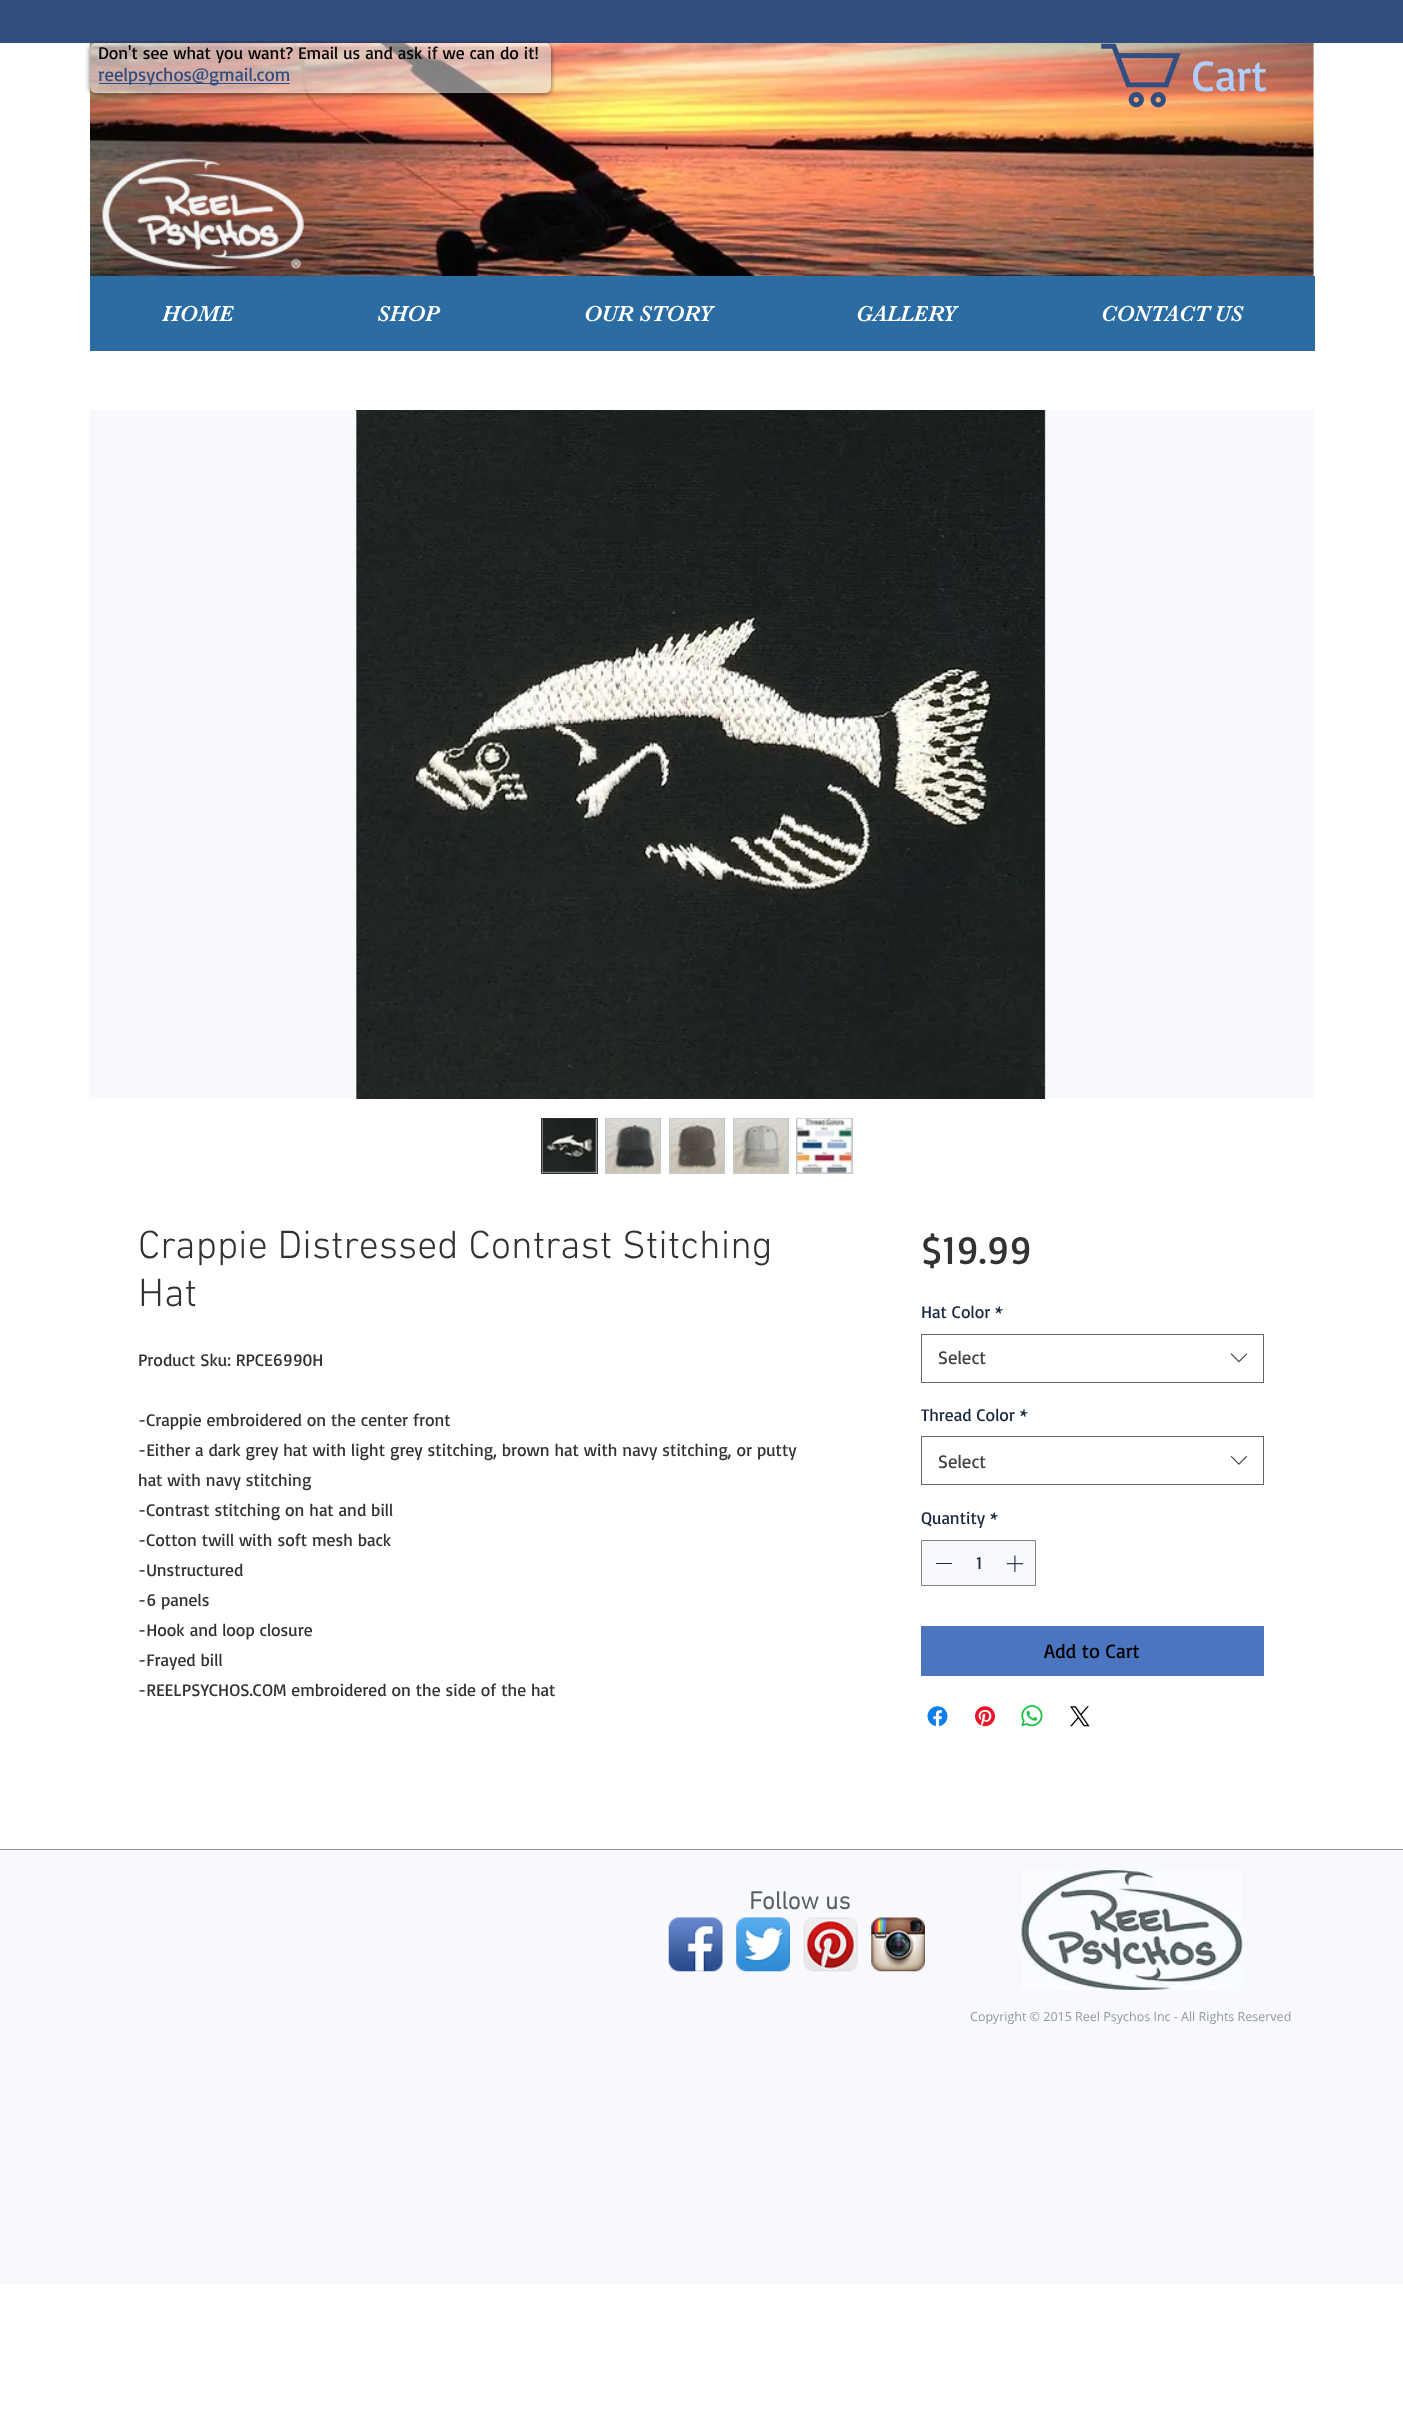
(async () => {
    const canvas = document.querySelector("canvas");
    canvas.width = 1403;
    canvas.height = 2415;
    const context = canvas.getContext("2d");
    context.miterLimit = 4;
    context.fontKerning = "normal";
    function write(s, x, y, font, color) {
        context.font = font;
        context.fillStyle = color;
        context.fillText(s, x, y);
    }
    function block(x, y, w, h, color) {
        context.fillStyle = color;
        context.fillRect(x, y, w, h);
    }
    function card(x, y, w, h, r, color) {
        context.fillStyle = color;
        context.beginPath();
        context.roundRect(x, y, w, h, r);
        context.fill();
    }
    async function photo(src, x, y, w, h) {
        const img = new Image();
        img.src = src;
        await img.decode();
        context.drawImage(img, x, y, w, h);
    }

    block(0, 0, 1403, 2415, "rgb(255, 255, 255)");
    block(0, 0, 1403, 43, "rgb(50, 78, 128)");
    await photo("media/2.png", 90, 43, 1224, 233);
    context.save();
    context.beginPath();
    context.moveTo(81, 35);
    context.lineTo(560, 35);
    context.lineTo(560, 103);
    context.lineTo(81, 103);
    context.closePath();
    context.moveTo(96, 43);
    context.lineTo(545, 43);
    context.bezierCurveTo(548.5, 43, 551, 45.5, 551, 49);
    context.lineTo(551, 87);
    context.bezierCurveTo(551, 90.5, 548.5, 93, 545, 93);
    context.lineTo(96, 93);
    context.bezierCurveTo(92.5, 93, 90, 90.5, 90, 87);
    context.lineTo(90, 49);
    context.bezierCurveTo(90, 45.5, 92.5, 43, 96, 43);
    context.closePath();
    context.clip("evenodd");
    context.fillStyle = "rgba(0, 0, 0, 0.6)";
    context.filter = "blur(2.5px)";
    context.beginPath();
    context.roundRect(90, 44, 461, 50, 6);
    context.fill();
    context.filter = "none";
    context.restore();
    card(90, 43, 461, 50, 6, "rgba(255, 255, 255, 0.54)");
    await photo("media/1.png", 90, 46, 461, 46);
    write("Don't see what you want? Email us and ask if we can do it!", 98, 59, "17.5px Basic", "rgb(0, 0, 0)");
    block(99, 83, 191, 1, "rgb(50, 78, 128)");
    write("reelpsychos@gmail.com", 98, 81, "18.75px Basic", "rgb(50, 78, 128)");
    await photo("media/3.png", 1101, 43, 80, 65);
    write("Cart", 1192, 91, "44px Basic", "rgb(177, 206, 255)");
    await photo("media/4.png", 102, 158, 202, 112);
    block(90, 276, 1225, 75, "rgb(43, 108, 163)");
    write("HOME", 162, 321, "22.5px 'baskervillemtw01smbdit'", "rgb(255, 255, 255)");
    write("SHOP", 377, 321, "22.5px 'baskervillemtw01smbdit'", "rgb(255, 255, 255)");
    write("OUR STORY", 584, 321, "22.5px 'baskervillemtw01smbdit'", "rgb(255, 255, 255)");
    write("GALLERY", 856, 321, "22.5px 'baskervillemtw01smbdit'", "rgb(255, 255, 255)");
    write("CONTACT US", 1101, 321, "22.5px 'baskervillemtw01smbdit'", "rgb(255, 255, 255)");
    block(89, 410, 1225, 689, "rgb(247, 249, 252)");
    await photo("media/5.png", 356, 410, 690, 689);
    context.fillStyle = "rgb(198, 201, 202)";
    context.beginPath();
    context.rect(541.5, 1118.5, 56, 55);
    context.fill();
    context.strokeStyle = "rgb(49, 50, 50)";
    context.stroke();
    await photo("media/6.png", 542, 1118, 55, 55);
    block(605, 1118, 56, 56, "rgb(198, 201, 202)");
    await photo("media/7.png", 606, 1118, 54, 55);
    block(669, 1118, 56, 56, "rgb(198, 201, 202)");
    await photo("media/8.png", 669, 1118, 55, 55);
    block(733, 1118, 56, 56, "rgb(198, 201, 202)");
    await photo("media/9.png", 733, 1118, 55, 55);
    block(796, 1118, 57, 56, "rgb(198, 201, 202)");
    await photo("media/10.png", 797, 1118, 55, 55);
    write("Crappie Distressed Contrast Stitching", 138, 1258, "300 40px 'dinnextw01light'", "rgb(49, 50, 50)");
    write("Hat", 138, 1306, "300 40px 'dinnextw01light'", "rgb(49, 50, 50)");
    write("Product Sku: RPCE6990H", 138, 1366, "17.5px Basic", "rgb(49, 50, 50)");
    write("-Crappie embroidered on the center front", 138, 1426, "17.5px Basic", "rgb(49, 50, 50)");
    write("-Either a dark grey hat with light grey stitching, brown hat with navy stitching, or putty", 138, 1456, "17.5px Basic", "rgb(49, 50, 50)");
    write("hat with navy stitching", 138, 1486, "17.5px Basic", "rgb(49, 50, 50)");
    write("-Contrast stitching on hat and bill", 138, 1516, "17.5px Basic", "rgb(49, 50, 50)");
    write("-Cotton twill with soft mesh back", 138, 1546, "17.5px Basic", "rgb(49, 50, 50)");
    write("-Unstructured", 138, 1576, "17.5px Basic", "rgb(49, 50, 50)");
    write("-6 panels", 138, 1606, "17.5px Basic", "rgb(49, 50, 50)");
    write("-Hook and loop closure", 138, 1636, "17.5px Basic", "rgb(49, 50, 50)");
    write("-Frayed bill", 138, 1666, "17.5px Basic", "rgb(49, 50, 50)");
    write("-REELPSYCHOS.COM embroidered on the side of the hat", 138, 1696, "17.5px Basic", "rgb(49, 50, 50)");
    write("$19.99", 921, 1264, "40px Basic", "rgb(49, 50, 50)");
    write("Hat Color *", 921, 1318, "17.5px Basic", "rgb(25, 39, 64)");
    context.strokeStyle = "rgb(102, 102, 102)";
    context.strokeRect(921.5, 1334.5, 342, 48);
    write("Select", 938, 1364, "18.75px Basic", "rgb(68, 68, 68)");
    await photo("media/11.png", 1230, 1353, 18, 10);
    write("Thread Color *", 921, 1421, "17.5px Basic", "rgb(25, 39, 64)");
    context.strokeRect(921.5, 1436.5, 342, 48);
    write("Select", 938, 1468, "18.75px Basic", "rgb(68, 68, 68)");
    await photo("media/12.png", 1230, 1455, 18, 10);
    write("Quantity *", 921, 1524, "17.5px Basic", "rgb(25, 39, 64)");
    context.fillStyle = "rgb(247, 249, 252)";
    context.beginPath();
    context.rect(921.5, 1540.5, 114, 45);
    context.fill();
    context.strokeStyle = "rgb(128, 130, 131)";
    context.stroke();
    block(936, 1563, 16, 1, "rgb(25, 39, 64)");
    write("1", 976, 1569, "17.5px Basic", "rgb(25, 39, 64)");
    await photo("media/13.png", 1006, 1555, 18, 17);
    block(921, 1626, 343, 50, "rgb(75, 117, 191)");
    write("Add to Cart", 1044, 1658, "20px Basic", "rgb(0, 0, 0)");
    await photo("media/14.png", 927, 1706, 21, 21);
    await photo("media/15.png", 975, 1706, 20, 21);
    await photo("media/16.png", 1021, 1705, 22, 22);
    await photo("media/17.png", 1070, 1706, 20, 21);
    block(0, 1850, 1403, 434, "rgb(247, 249, 252)");
    block(0, 1849, 1403, 1, "rgb(148, 151, 151)");
    write("Follow us", 749, 1909, "bold 25px 'dinnextw01light'", "rgb(90, 94, 97)");
    await photo("media/18.png", 1021, 1870, 222, 120);
    await photo("media/19.png", 668, 1917, 55, 55);
    await photo("media/20.png", 736, 1917, 54, 55);
    await photo("media/21.png", 803, 1917, 55, 55);
    await photo("media/22.png", 871, 1917, 54, 55);
    write("Copyright © 2015 Reel Psychos Inc - All Rights Reserved", 970, 2021, "12.5px Open Sans", "rgb(148, 151, 151)");
})();
